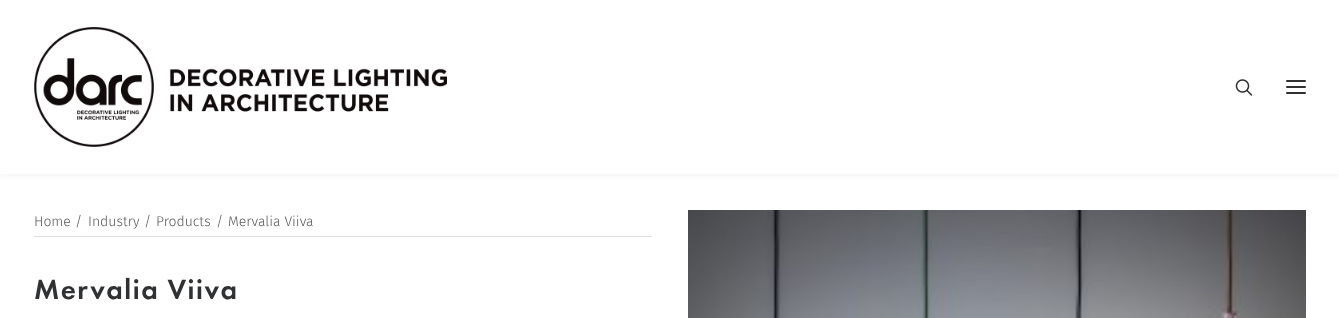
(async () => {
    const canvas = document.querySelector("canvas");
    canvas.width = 1339;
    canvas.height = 318;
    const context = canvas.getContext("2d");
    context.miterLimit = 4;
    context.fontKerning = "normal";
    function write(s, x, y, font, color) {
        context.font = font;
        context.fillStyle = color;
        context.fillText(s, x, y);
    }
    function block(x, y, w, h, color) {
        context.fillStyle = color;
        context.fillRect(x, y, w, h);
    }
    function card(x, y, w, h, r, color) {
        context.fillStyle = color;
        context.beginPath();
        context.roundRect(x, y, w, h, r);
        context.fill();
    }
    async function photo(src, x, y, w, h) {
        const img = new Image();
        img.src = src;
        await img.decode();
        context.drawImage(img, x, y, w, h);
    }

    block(0, 0, 1339, 318, "rgb(255, 255, 255)");
    context.fillStyle = "rgba(0, 0, 0, 0.1)";
    context.filter = "blur(3.5px)";
    context.beginPath();
    context.rect(-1, 1, 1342, 172);
    context.fill();
    context.filter = "none";
    block(0, 0, 1339, 174, "rgb(255, 255, 255)");
    await photo("media/1.png", 34, 27, 413, 120);
    await photo("media/2.png", 1235, 79, 18, 17);
    card(1286, 86, 20, 2, 1, "rgb(48, 49, 51)");
    card(1286, 80, 20, 2, 1, "rgb(48, 49, 51)");
    card(1286, 92, 20, 2, 1, "rgb(48, 49, 51)");
    write("Home", 34, 226, "300 14px Fira Sans", "rgb(89, 89, 89)");
    write("/", 75, 226, "300 14px Fira Sans", "rgb(89, 89, 89)");
    write("Industry", 88, 226, "300 14px Fira Sans", "rgb(89, 89, 89)");
    write("/", 144, 226, "300 14px Fira Sans", "rgb(89, 89, 89)");
    write("Products", 156, 226, "300 14px Fira Sans", "rgb(89, 89, 89)");
    write("/", 216, 226, "300 14px Fira Sans", "rgb(89, 89, 89)");
    write("Mervalia Viiva", 228, 226, "300 14px Fira Sans", "rgb(89, 89, 89)");
    block(34, 236, 618, 1, "rgb(221, 221, 221)");
    context.letterSpacing = "1.5px";
    write("Mervalia Viiva", 34, 299, "500 29px Futura PT", "rgb(48, 49, 51)");
    await photo("media/3.png", 688, 210, 618, 108);
})();
